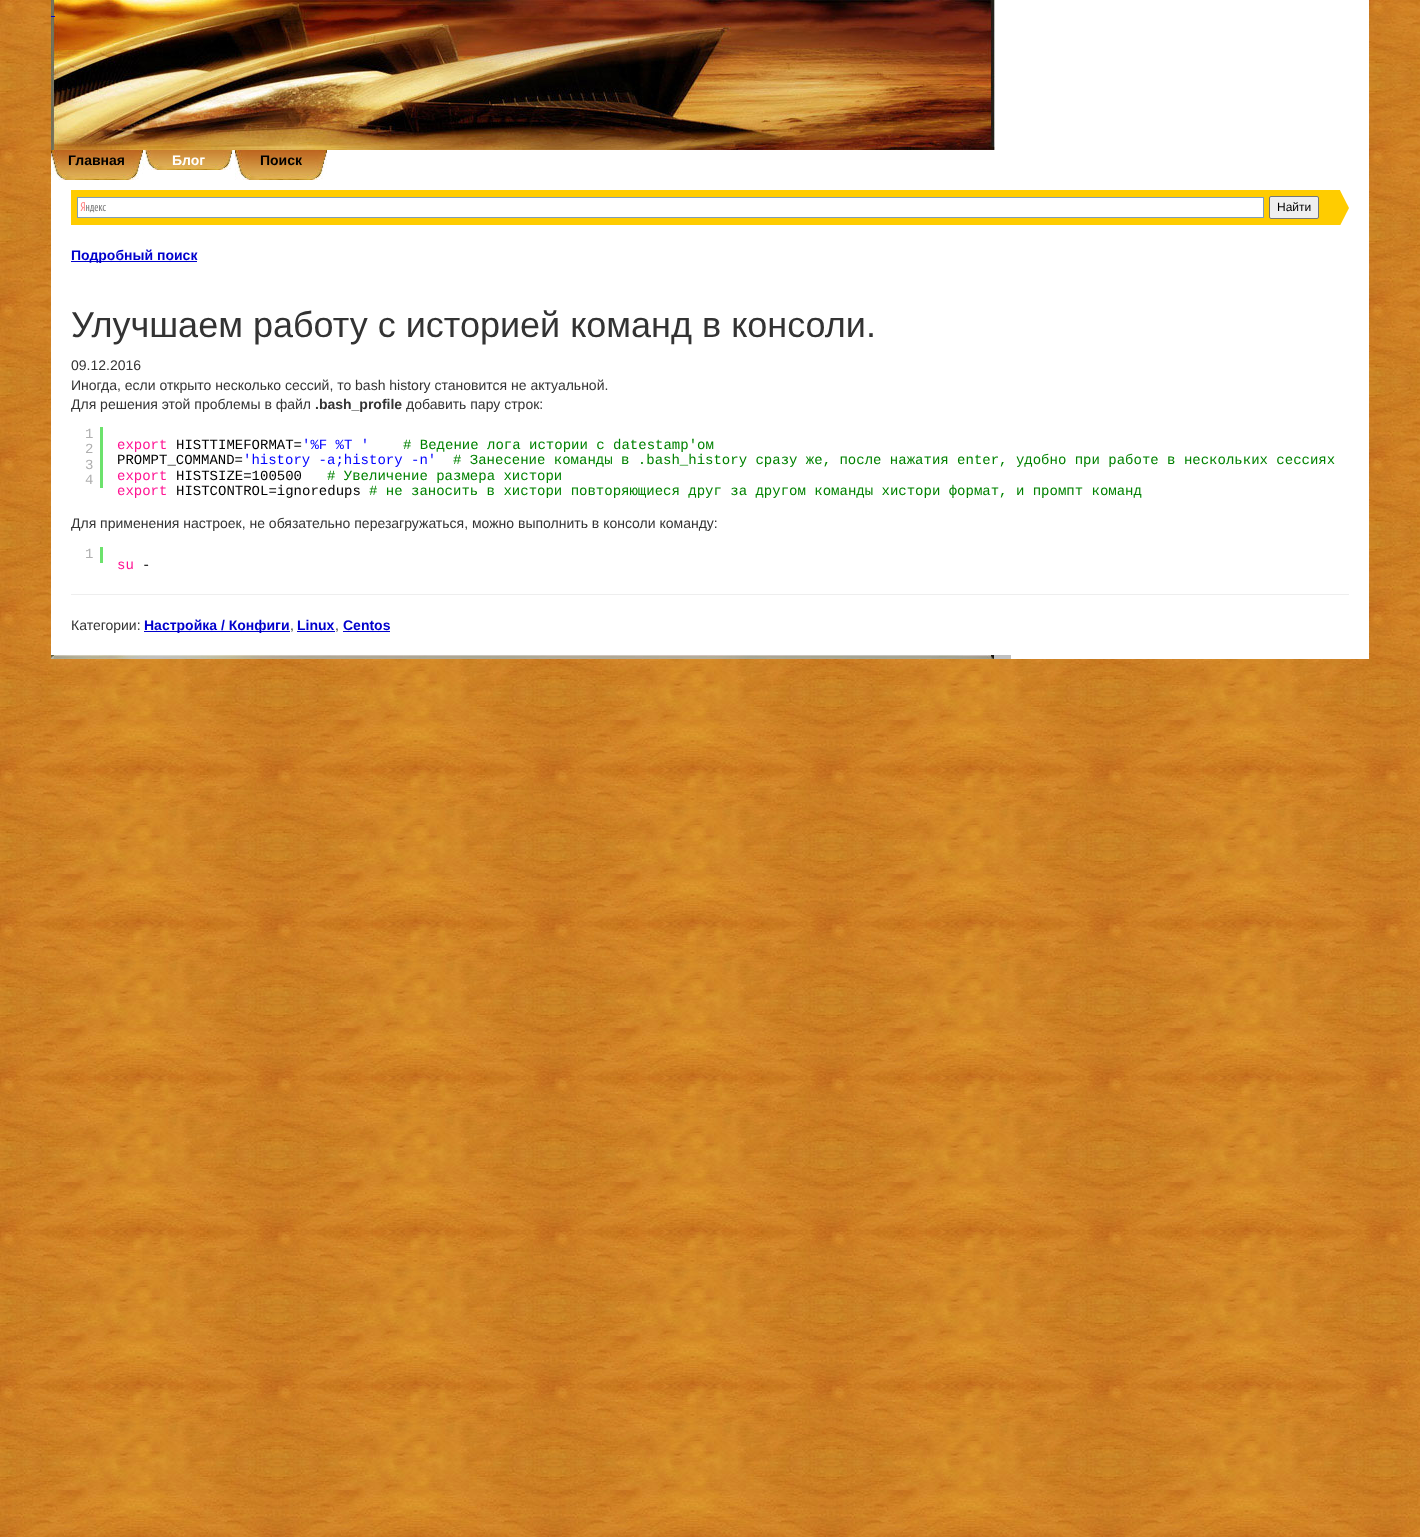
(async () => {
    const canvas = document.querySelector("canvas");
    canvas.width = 1420;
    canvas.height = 1537;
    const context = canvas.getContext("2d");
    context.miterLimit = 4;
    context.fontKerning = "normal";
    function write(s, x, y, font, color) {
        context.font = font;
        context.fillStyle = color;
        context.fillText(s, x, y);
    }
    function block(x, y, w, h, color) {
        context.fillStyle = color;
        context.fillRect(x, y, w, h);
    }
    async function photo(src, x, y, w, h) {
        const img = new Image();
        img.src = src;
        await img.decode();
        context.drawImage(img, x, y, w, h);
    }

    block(0, 0, 1420, 1537, "rgb(255, 255, 255)");
    await photo("media/1.png", 0, 659, 1420, 878);
    await photo("media/2.png", 0, 0, 51, 150);
    await photo("media/3.png", 51, 0, 944, 150);
    block(51, 16, 4, 1, "rgb(0, 0, 204)");
    await photo("media/4.png", 1369, 0, 51, 150);
    await photo("media/5.png", 0, 150, 51, 509);
    await photo("media/6.png", 51, 150, 92, 30);
    write("Главная", 68, 165, "bold 14px Liberation Sans", "rgb(0, 0, 0)");
    await photo("media/7.png", 143, 150, 92, 20);
    write("Блог", 172, 165, "bold 14px Liberation Sans", "rgb(255, 255, 255)");
    await photo("media/6.png", 235, 150, 92, 30);
    write("Поиск", 260, 165, "bold 14px Liberation Sans", "rgb(0, 0, 0)");
    block(71, 190, 1248, 35, "rgb(255, 204, 0)");
    block(78, 198, 1185, 19, "rgb(255, 255, 255)");
    await photo("media/8.png", 80, 202, 26, 11);
    context.strokeStyle = "rgb(127, 157, 185)";
    context.strokeRect(77.5, 197.5, 1186, 20);
    context.fillStyle = "rgb(239, 239, 239)";
    context.beginPath();
    context.roundRect(1269.5, 196.5, 49, 22, 1.5);
    context.fill();
    context.strokeStyle = "rgb(118, 118, 118)";
    context.stroke();
    write("Найти", 1277, 211, "12px Liberation Sans", "rgb(0, 0, 0)");
    context.save();
    context.beginPath();
    context.rect(1319, 190, 30, 35);
    context.clip();
    context.fillStyle = "rgb(255, 204, 0)";
    context.beginPath();
    context.moveTo(1319, 267);
    context.lineTo(1319, 149);
    context.lineTo(1349, 208);
    context.closePath();
    context.fill();
    context.restore();
    block(71, 261, 126, 1, "rgb(0, 0, 204)");
    write("Подробный поиск", 71, 260, "bold 14px Liberation Sans", "rgb(0, 0, 204)");
    write("Улучшаем работу с историей команд в консоли.", 71, 337, "36px Liberation Sans", "rgb(51, 51, 51)");
    write("09.12.2016", 71, 370, "14px Liberation Sans", "rgb(51, 51, 51)");
    write("Иногда, если открыто несколько сессий, то bash history становится не актуальной.", 71, 390, "14px Liberation Sans", "rgb(51, 51, 51)");
    write("Для решения этой проблемы в файл", 71, 409, "14px Liberation Sans", "rgb(51, 51, 51)");
    write(".bash_profile", 315, 409, "bold 14px Liberation Sans", "rgb(51, 51, 51)");
    write("добавить пару строк:", 406, 409, "14px Liberation Sans", "rgb(51, 51, 51)");
    block(100, 427, 3, 61, "rgb(108, 226, 108)");
    write("1", 85, 438, "14px Liberation Mono", "rgb(175, 175, 175)");
    write("2", 85, 453, "14px Liberation Mono", "rgb(175, 175, 175)");
    write("3", 85, 469, "14px Liberation Mono", "rgb(175, 175, 175)");
    write("4", 85, 484, "14px Liberation Mono", "rgb(175, 175, 175)");
    write("export", 117, 449, "14px Liberation Mono", "rgb(255, 20, 147)");
    write("HISTTIMEFORMAT=", 176, 449, "14px Liberation Mono", "rgb(0, 0, 0)");
    write("'%F %T '", 302, 449, "14px Liberation Mono", "rgb(0, 0, 255)");
    write("# Ведение лога истории с datestamp'ом", 403, 449, "14px Liberation Mono", "rgb(0, 130, 0)");
    write("PROMPT_COMMAND=", 117, 464, "14px Liberation Mono", "rgb(0, 0, 0)");
    write("'history -a;history -n'", 243, 464, "14px Liberation Mono", "rgb(0, 0, 255)");
    write("# Занесение команды в .bash_history сразу же, после нажатия enter, удобно при работе в нескольких сессиях", 453, 464, "14px Liberation Mono", "rgb(0, 130, 0)");
    write("export", 117, 480, "14px Liberation Mono", "rgb(255, 20, 147)");
    write("HISTSIZE=100500", 176, 480, "14px Liberation Mono", "rgb(0, 0, 0)");
    write("# Увеличение размера хистори", 327, 480, "14px Liberation Mono", "rgb(0, 130, 0)");
    write("export", 117, 495, "14px Liberation Mono", "rgb(255, 20, 147)");
    write("HISTCONTROL=ignoredups", 176, 495, "14px Liberation Mono", "rgb(0, 0, 0)");
    write("# не заносить в хистори повторяющиеся друг за другом команды хистори формат, и промпт команд", 369, 495, "14px Liberation Mono", "rgb(0, 130, 0)");
    write("Для применения настроек, не обязательно перезагружаться, можно выполнить в консоли команду:", 71, 528, "14px Liberation Sans", "rgb(51, 51, 51)");
    block(100, 547, 3, 16, "rgb(108, 226, 108)");
    write("1", 85, 558, "14px Liberation Mono", "rgb(175, 175, 175)");
    write("su", 117, 569, "14px Liberation Mono", "rgb(255, 20, 147)");
    write("-", 142, 569, "14px Liberation Mono", "rgb(0, 0, 0)");
    block(71, 594, 1278, 1, "rgb(238, 238, 238)");
    write("Категории:", 71, 630, "14px Liberation Sans", "rgb(51, 51, 51)");
    block(144, 631, 146, 1, "rgb(0, 0, 204)");
    write("Настройка / Конфиги", 144, 630, "bold 14px Liberation Sans", "rgb(0, 0, 204)");
    write(",", 290, 630, "14px Liberation Sans", "rgb(51, 51, 51)");
    write("Linux", 297, 630, "bold 14px Liberation Sans", "rgb(0, 0, 204)");
    block(297, 631, 38, 1, "rgb(0, 0, 204)");
    write(",", 335, 630, "14px Liberation Sans", "rgb(51, 51, 51)");
    write("Centos", 343, 630, "bold 14px Liberation Sans", "rgb(0, 0, 204)");
    block(343, 631, 47, 1, "rgb(0, 0, 204)");
    await photo("media/9.png", 51, 655, 960, 4);
    await photo("media/5.png", 1369, 150, 51, 509);
})();
